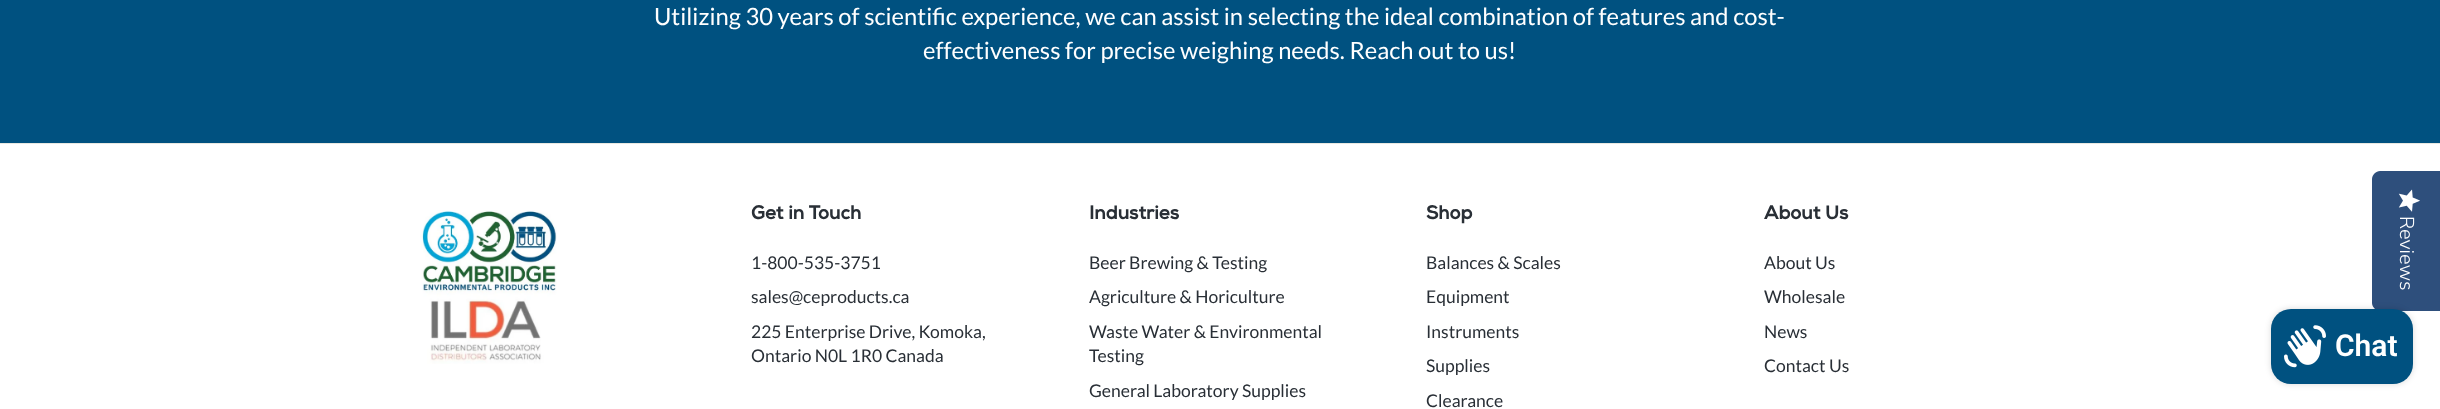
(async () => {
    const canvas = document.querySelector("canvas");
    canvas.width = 2440;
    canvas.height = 409;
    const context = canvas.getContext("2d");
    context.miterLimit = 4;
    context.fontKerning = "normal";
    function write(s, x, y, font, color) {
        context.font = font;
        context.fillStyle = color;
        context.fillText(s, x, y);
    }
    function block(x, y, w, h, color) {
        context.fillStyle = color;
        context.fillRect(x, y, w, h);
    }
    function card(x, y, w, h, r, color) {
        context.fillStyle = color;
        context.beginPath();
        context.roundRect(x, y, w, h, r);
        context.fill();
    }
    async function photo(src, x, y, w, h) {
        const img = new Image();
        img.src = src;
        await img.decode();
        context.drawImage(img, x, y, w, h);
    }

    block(0, 0, 2440, 409, "rgb(255, 255, 255)");
    block(0, 0, 2440, 143, "rgb(0, 81, 128)");
    write("Utilizing 30 years of scientific experience, we can assist in selecting the ideal combination of features and cost-", 654, 25, "23.75px Lato", "rgb(255, 255, 255)");
    write("effectiveness for precise weighing needs. Reach out to us!", 923, 59, "23.75px Lato", "rgb(255, 255, 255)");
    block(0, 143, 2440, 1, "rgb(232, 232, 225)");
    await photo("media/1.png", 420, 210, 137, 154);
    write("Get in Touch", 751, 219, "bold 18.75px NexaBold", "rgb(41, 47, 54)");
    write("1-800-535-3751", 751, 269, "17.5px Lato", "rgb(41, 47, 54)");
    write("sales@ceproducts.ca", 751, 303, "17.5px Lato", "rgb(41, 47, 54)");
    write("225 Enterprise Drive, Komoka,", 751, 338, "17.5px Lato", "rgb(41, 47, 54)");
    write("Ontario N0L 1R0 Canada", 751, 362, "17.5px Lato", "rgb(41, 47, 54)");
    write("Industries", 1089, 219, "bold 18.75px NexaBold", "rgb(41, 47, 54)");
    write("Beer Brewing & Testing", 1089, 269, "17.5px Lato", "rgb(41, 47, 54)");
    write("Agriculture & Horiculture", 1089, 303, "17.5px Lato", "rgb(41, 47, 54)");
    write("Waste Water & Environmental", 1089, 338, "17.5px Lato", "rgb(41, 47, 54)");
    write("Testing", 1089, 362, "17.5px Lato", "rgb(41, 47, 54)");
    write("General Laboratory Supplies", 1089, 397, "17.5px Lato", "rgb(41, 47, 54)");
    write("Shop", 1426, 219, "bold 18.75px NexaBold", "rgb(41, 47, 54)");
    write("Balances & Scales", 1426, 269, "17.5px Lato", "rgb(41, 47, 54)");
    write("Equipment", 1426, 303, "17.5px Lato", "rgb(41, 47, 54)");
    write("Instruments", 1426, 338, "17.5px Lato", "rgb(41, 47, 54)");
    write("Supplies", 1426, 372, "17.5px Lato", "rgb(41, 47, 54)");
    write("Clearance", 1426, 407, "17.5px Lato", "rgb(41, 47, 54)");
    write("About Us", 1764, 219, "bold 18.75px NexaBold", "rgb(41, 47, 54)");
    write("About Us", 1764, 269, "17.5px Lato", "rgb(41, 47, 54)");
    write("Wholesale", 1764, 303, "17.5px Lato", "rgb(41, 47, 54)");
    write("News", 1764, 338, "17.5px Lato", "rgb(41, 47, 54)");
    write("Contact Us", 1764, 372, "17.5px Lato", "rgb(41, 47, 54)");
    context.fillStyle = "rgb(46, 79, 124)";
    context.beginPath();
    context.moveTo(2440, 171);
    context.lineTo(2440, 311);
    context.lineTo(2380, 311);
    context.bezierCurveTo(2376, 311, 2372, 307, 2372, 303);
    context.lineTo(2372, 179);
    context.bezierCurveTo(2372, 175, 2376, 171, 2380, 171);
    context.closePath();
    context.fill();
    await photo("media/2.png", 2398, 189, 22, 23);
    context.font = "300 20px Nunito Sans";
    context.fillStyle = "rgb(255, 255, 255)";
    context.save();
    context.translate(2400, 216);
    context.rotate(90 * Math.PI / 180);
    context.fillText("Reviews", 0, 0);
    context.restore();
    context.fillStyle = "rgba(0, 0, 0, 0.15)";
    context.filter = "blur(3px)";
    context.beginPath();
    context.roundRect(2271, 309, 142, 75, 20);
    context.fill();
    context.filter = "none";
    card(2271, 309, 142, 75, 20, "rgb(0, 81, 128)");
    await photo("media/3.png", 2284, 325, 42, 43);
    write("Chat", 2335, 356, "600 30px Roboto", "rgb(255, 255, 255)");
})();
